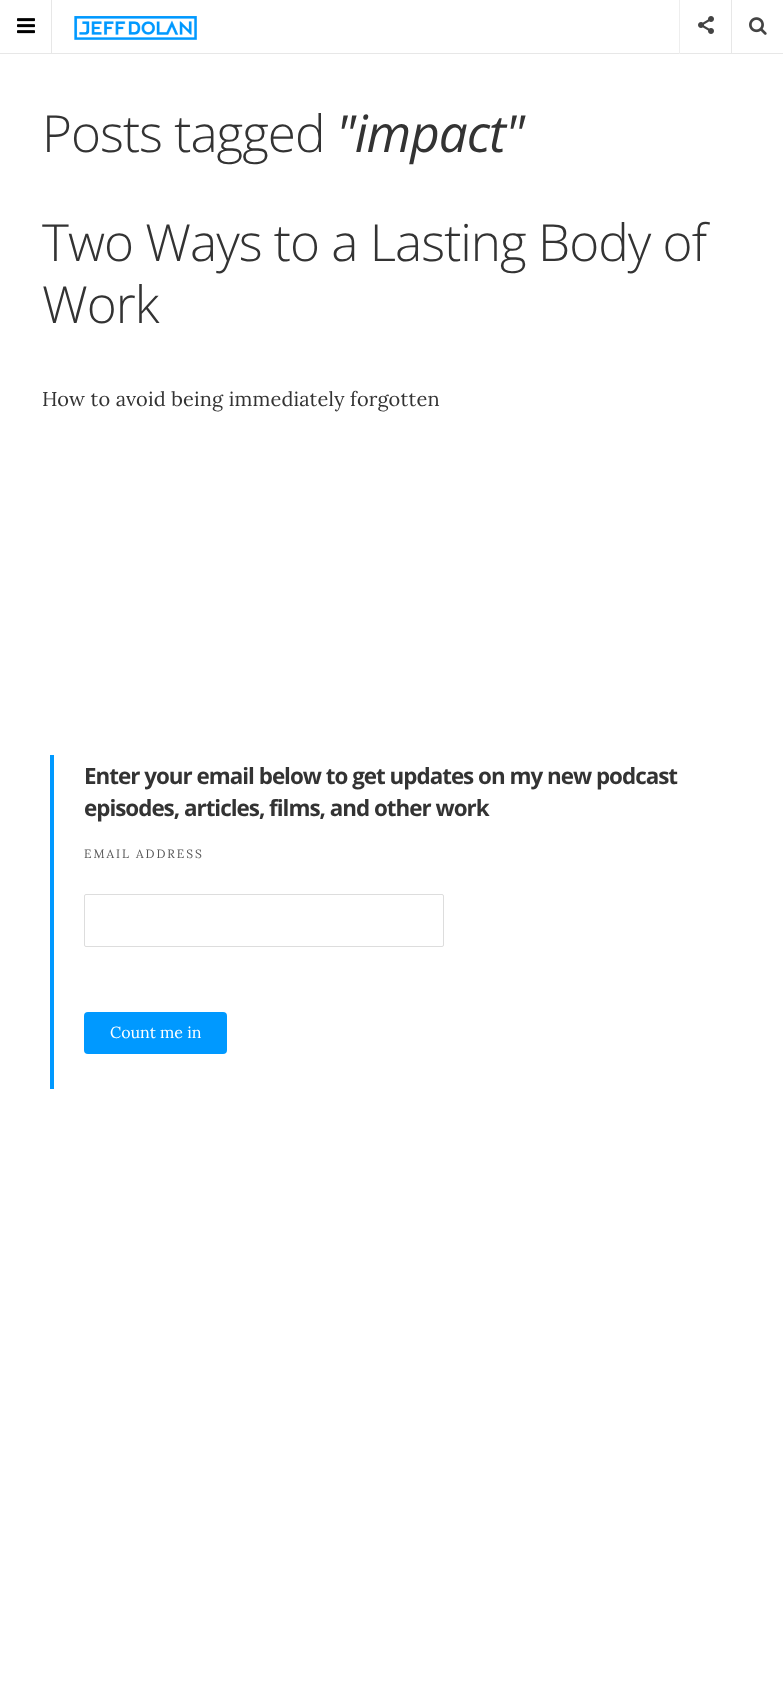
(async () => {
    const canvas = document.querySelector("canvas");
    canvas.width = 783;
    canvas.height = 1693;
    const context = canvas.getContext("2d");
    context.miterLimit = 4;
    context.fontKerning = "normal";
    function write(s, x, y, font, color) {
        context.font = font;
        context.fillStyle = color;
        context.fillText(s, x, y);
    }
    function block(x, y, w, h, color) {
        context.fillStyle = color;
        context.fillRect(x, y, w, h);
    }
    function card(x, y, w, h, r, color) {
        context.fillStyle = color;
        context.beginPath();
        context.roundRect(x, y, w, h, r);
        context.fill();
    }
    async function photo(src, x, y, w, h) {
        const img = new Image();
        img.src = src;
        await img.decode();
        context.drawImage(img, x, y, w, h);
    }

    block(0, 0, 783, 1693, "rgb(255, 255, 255)");
    block(0, 53, 783, 1, "rgb(231, 231, 231)");
    block(51, 0, 1, 54, "rgb(231, 231, 231)");
    await photo("media/1.png", 17, 18, 18, 16);
    await photo("media/2.png", 74, 16, 123, 24);
    block(679, 0, 1, 54, "rgb(238, 238, 238)");
    await photo("media/3.png", 698, 16, 16, 18);
    block(731, 0, 1, 54, "rgb(231, 231, 231)");
    await photo("media/4.png", 749, 17, 18, 18);
    context.letterSpacing = "-1px";
    write("Posts tagged", 42, 152, "300 51.25px Open Sans", "rgb(51, 51, 51)");
    write("\"impact\"", 336, 152, "italic 51.25px Open Sans", "rgb(51, 51, 51)");
    write("Two Ways to a Lasting Body of", 42, 261, "300 51.25px Open Sans", "rgb(51, 51, 51)");
    write("Work", 42, 323, "300 51.25px Open Sans", "rgb(51, 51, 51)");
    context.letterSpacing = "0.15px";
    write("How to avoid being immediately forgotten", 42, 406, "20px Lora", "rgb(51, 51, 51)");
    block(50, 755, 4, 334, "rgb(0, 153, 255)");
    context.letterSpacing = "-1px";
    write("Enter your email below to get updates on my new podcast", 84, 784, "bold 22.4px Open Sans", "rgb(51, 51, 51)");
    write("episodes, articles, films, and other work", 84, 816, "bold 22.4px Open Sans", "rgb(51, 51, 51)");
    context.letterSpacing = "2px";
    write("EMAIL ADDRESS", 84, 858, "12px Lora", "rgb(85, 85, 85)");
    context.beginPath();
    context.roundRect(84.5, 894.5, 359, 52, 1.5);
    context.strokeStyle = "rgb(221, 221, 221)";
    context.stroke();
    card(84, 1012, 143, 42, 4, "rgb(0, 153, 255)");
    context.letterSpacing = "0px";
    write("Count me in", 110, 1038, "16px Lora", "rgb(255, 255, 255)");
})();
